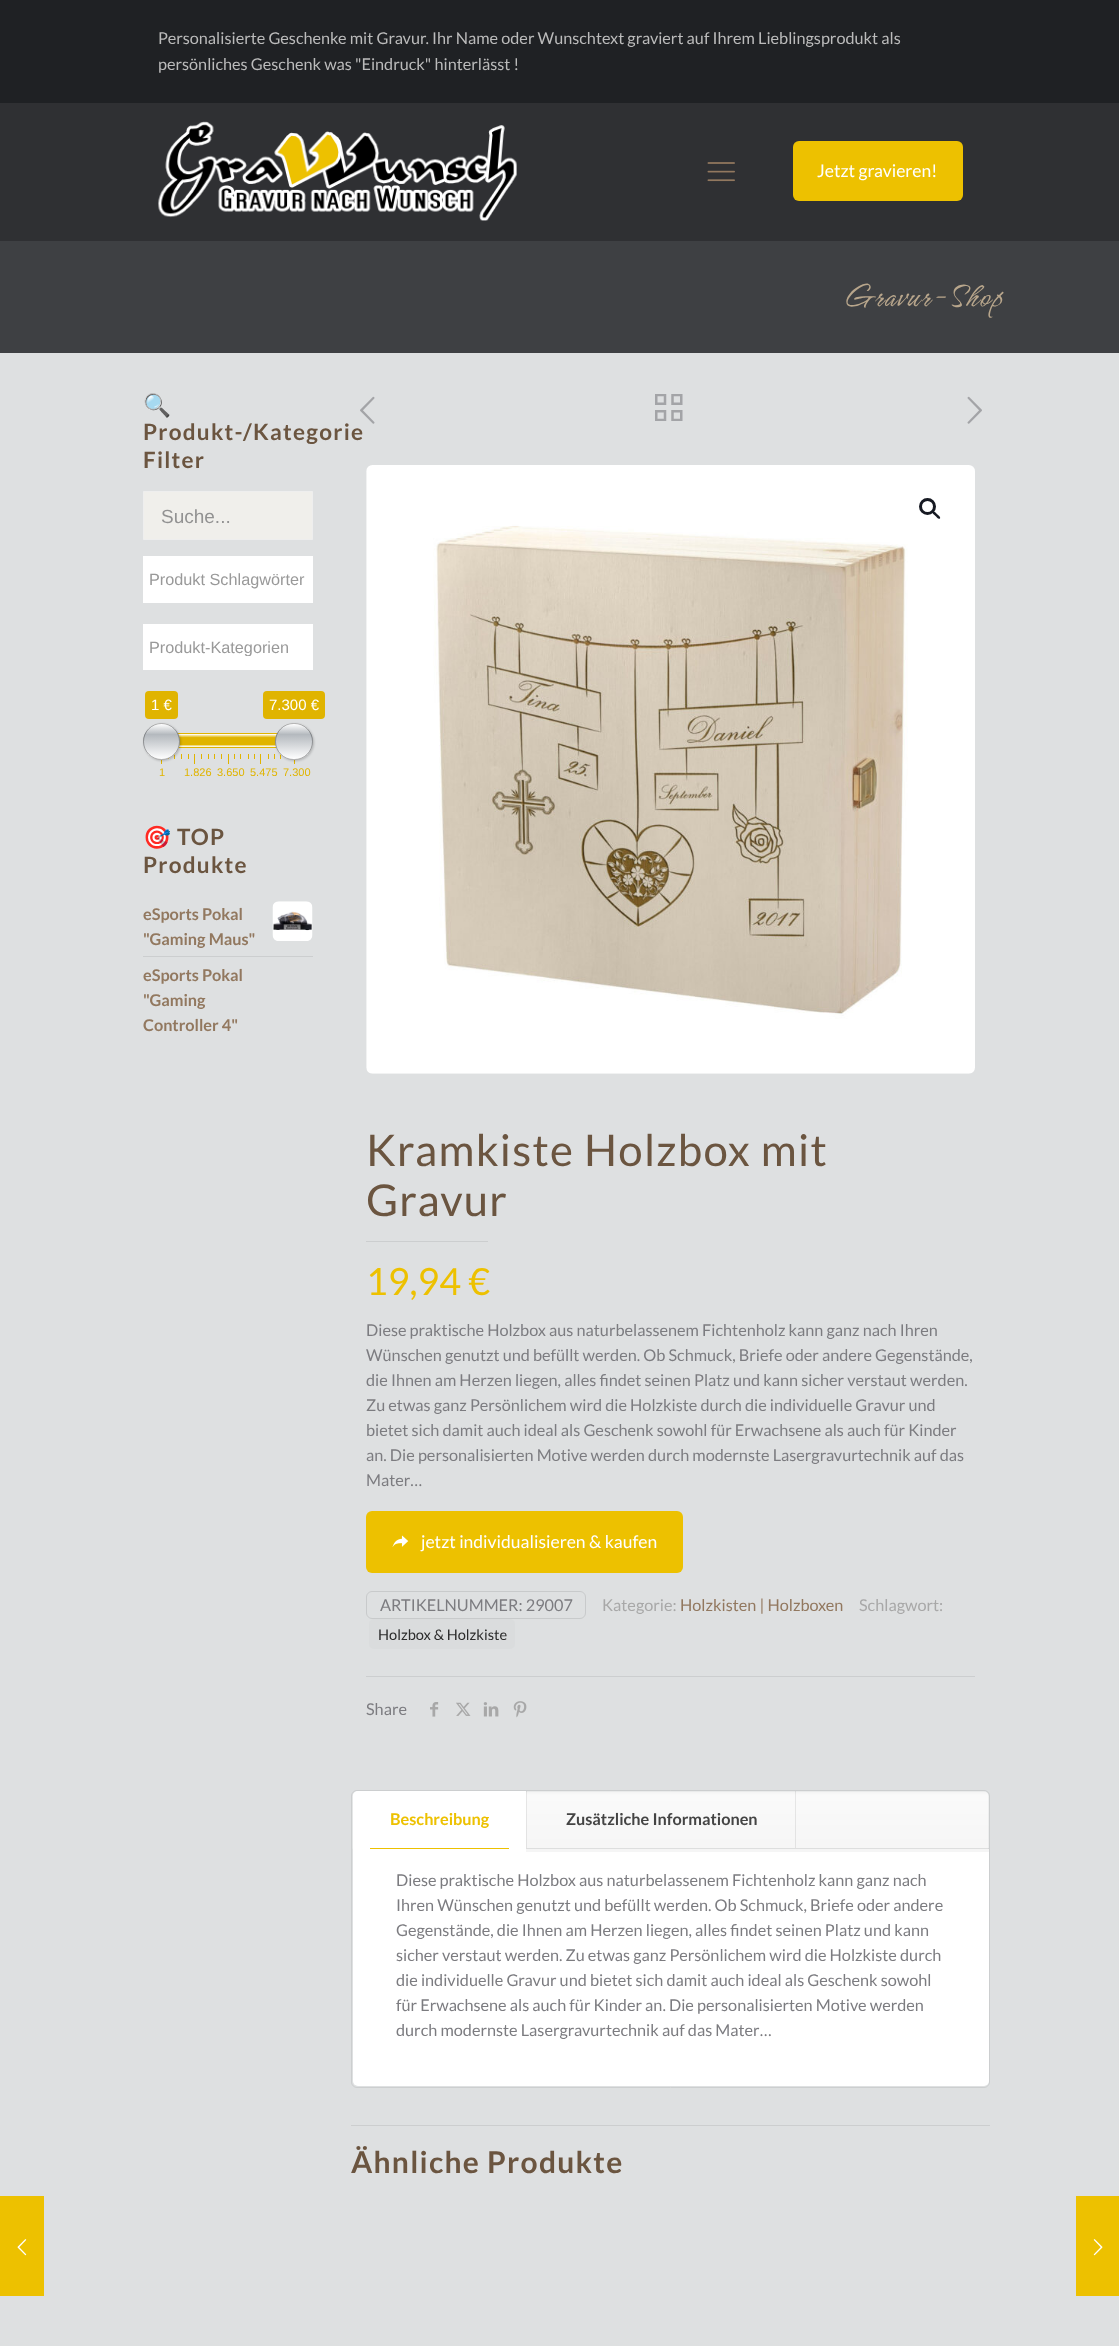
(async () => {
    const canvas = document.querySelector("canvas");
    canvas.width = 1119;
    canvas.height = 2346;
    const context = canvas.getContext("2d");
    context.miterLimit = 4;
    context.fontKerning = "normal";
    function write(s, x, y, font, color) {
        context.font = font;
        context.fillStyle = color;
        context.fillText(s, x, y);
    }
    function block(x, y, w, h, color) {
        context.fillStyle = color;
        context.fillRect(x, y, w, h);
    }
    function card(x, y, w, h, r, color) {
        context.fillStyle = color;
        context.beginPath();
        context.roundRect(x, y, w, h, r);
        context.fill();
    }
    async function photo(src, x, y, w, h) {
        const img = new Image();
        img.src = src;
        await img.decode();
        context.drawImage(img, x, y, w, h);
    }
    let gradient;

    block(0, 0, 1119, 2346, "rgb(222, 224, 225)");
    block(0, 0, 1119, 103, "rgb(31, 33, 36)");
    write("Personalisierte Geschenke mit Gravur. Ihr Name oder Wunschtext graviert auf Ihrem Lieblingsprodukt als", 158, 44, "16.25px Lato", "rgb(187, 187, 187)");
    write("persönliches Geschenk was \"Eindruck\" hinterlässt !", 158, 70, "16.25px Lato", "rgb(187, 187, 187)");
    block(0, 103, 1119, 138, "rgb(47, 48, 51)");
    await photo("media/1.png", 158, 121, 359, 100);
    await photo("media/2.png", 707, 162, 28, 20);
    card(793, 141, 170, 60, 6, "rgb(237, 193, 0)");
    write("Jetzt gravieren!", 817, 177, "17.5px Lato", "rgb(255, 255, 255)");
    block(0, 241, 1119, 112, "rgb(62, 64, 67)");
    context.letterSpacing = "1.25px";
    write("Gravur-Shop", 845, 306, "36.25px Hurricane", "rgb(184, 166, 140)");
    write("🔍", 143, 413, "bold 22.5px Noto Color Emoji", "rgb(107, 85, 64)");
    await photo("media/4.png", 360, 396, 15, 28);
    write("Produkt-/Kategorie", 143, 440, "bold 22.5px Lato", "rgb(107, 85, 64)");
    write("Filter", 143, 468, "bold 22.5px Lato", "rgb(107, 85, 64)");
    context.fillStyle = "rgb(240, 239, 235)";
    context.beginPath();
    context.rect(143.5, 491.5, 169, 48);
    context.fill();
    context.strokeStyle = "rgb(238, 238, 238)";
    context.stroke();
    context.letterSpacing = "0px";
    write("Suche...", 161, 523, "19px Liberation Sans", "rgb(146, 146, 146)");
    block(143, 556, 170, 47, "rgb(255, 255, 255)");
    write("Produkt Schlagwörter", 149, 585, "16.25px Liberation Sans", "rgb(153, 153, 153)");
    block(143, 624, 170, 46, "rgb(255, 255, 255)");
    context.save();
    context.beginPath();
    context.rect(149, 638, 164, 18);
    context.clip();
    write("Produkt-Kategorien", 149, 653, "16.25px Liberation Sans", "rgb(153, 153, 153)");
    context.restore();
    card(145, 691, 33, 28, 4, "rgb(224, 180, 0)");
    write("1 €", 151, 710, "15px Liberation Sans", "rgb(255, 255, 255)");
    card(263, 691, 62, 28, 4, "rgb(224, 180, 0)");
    write("7.300 €", 269, 710, "15px Liberation Sans", "rgb(255, 255, 255)");
    context.beginPath();
    context.roundRect(143.5, 733.5, 169, 14, 7);
    context.strokeStyle = "rgb(204, 204, 204)";
    context.stroke();
    gradient = context.createLinearGradient(228, 734, 228, 746);
    gradient.addColorStop(0, "rgb(255, 255, 255)");
    gradient.addColorStop(0.3, "rgb(224, 180, 0)");
    gradient.addColorStop(1, "rgb(224, 180, 0)");
    context.fillStyle = gradient;
    context.fillRect(178, 734, 99, 12);
    gradient = context.createLinearGradient(228, 746, 228, 759);
    gradient.addColorStop(0, "rgb(255, 255, 255)");
    gradient.addColorStop(0.3, "rgb(224, 180, 0)");
    gradient.addColorStop(1, "rgb(224, 180, 0)");
    context.fillStyle = gradient;
    context.fillRect(179, 746, 97, 1);
    context.strokeStyle = "rgba(255, 255, 255, 0.5)";
    context.strokeRect(163.5, 734.5, 129, 11);
    context.strokeStyle = "rgb(224, 180, 0)";
    context.strokeRect(161.5, 733.5, 132, 14);
    block(161, 754, 1, 10, "rgb(224, 180, 0)");
    block(168, 754, 1, 5, "rgb(224, 180, 0)");
    block(174, 754, 1, 5, "rgb(224, 180, 0)");
    block(181, 754, 1, 5, "rgb(224, 180, 0)");
    context.fillStyle = "rgba(0, 0, 0, 0.2)";
    context.filter = "blur(1px)";
    context.beginPath();
    context.roundRect(144, 724, 37, 37, 18.5);
    context.fill();
    context.filter = "none";
    context.save();
    context.beginPath();
    context.roundRect(143, 723, 37, 37, 18.5);
    context.clip();
    gradient = context.createLinearGradient(161, 689, 161, 724);
    gradient.addColorStop(0, "rgb(255, 255, 255)");
    gradient.addColorStop(0.3, "rgb(180, 185, 190)");
    gradient.addColorStop(1, "rgb(255, 255, 255)");
    context.fillStyle = gradient;
    context.fillRect(155, 723, 13, 1);
    gradient = context.createLinearGradient(161, 724, 161, 759);
    gradient.addColorStop(0, "rgb(255, 255, 255)");
    gradient.addColorStop(0.3, "rgb(180, 185, 190)");
    gradient.addColorStop(1, "rgb(255, 255, 255)");
    context.fillStyle = gradient;
    context.fillRect(143, 724, 37, 35);
    gradient = context.createLinearGradient(161, 759, 161, 794);
    gradient.addColorStop(0, "rgb(255, 255, 255)");
    gradient.addColorStop(0.3, "rgb(180, 185, 190)");
    gradient.addColorStop(1, "rgb(255, 255, 255)");
    context.fillStyle = gradient;
    context.fillRect(155, 759, 13, 1);
    context.restore();
    context.beginPath();
    context.arc(161.5, 741.5, 18, 0, Math.PI * 2);
    context.strokeStyle = "rgba(0, 0, 0, 0.3)";
    context.stroke();
    block(274, 754, 1, 5, "rgb(224, 180, 0)");
    block(280, 754, 1, 5, "rgb(224, 180, 0)");
    block(294, 754, 1, 10, "rgb(224, 180, 0)");
    context.fillStyle = "rgba(0, 0, 0, 0.2)";
    context.filter = "blur(1px)";
    context.beginPath();
    context.roundRect(276, 724, 38, 37, 18.5);
    context.fill();
    context.filter = "none";
    context.save();
    context.beginPath();
    context.roundRect(275, 723, 38, 37, 18.5);
    context.clip();
    gradient = context.createLinearGradient(294, 689, 294, 724);
    gradient.addColorStop(0, "rgb(255, 255, 255)");
    gradient.addColorStop(0.3, "rgb(180, 185, 190)");
    gradient.addColorStop(1, "rgb(255, 255, 255)");
    context.fillStyle = gradient;
    context.fillRect(287, 723, 14, 1);
    gradient = context.createLinearGradient(294, 724, 294, 759);
    gradient.addColorStop(0, "rgb(255, 255, 255)");
    gradient.addColorStop(0.3, "rgb(180, 185, 190)");
    gradient.addColorStop(1, "rgb(255, 255, 255)");
    context.fillStyle = gradient;
    context.fillRect(275, 724, 38, 35);
    gradient = context.createLinearGradient(294, 759, 294, 794);
    gradient.addColorStop(0, "rgb(255, 255, 255)");
    gradient.addColorStop(0.3, "rgb(180, 185, 190)");
    gradient.addColorStop(1, "rgb(255, 255, 255)");
    context.fillStyle = gradient;
    context.fillRect(287, 759, 14, 1);
    context.restore();
    context.beginPath();
    context.roundRect(275.5, 723.5, 37, 36, 18);
    context.stroke();
    block(188, 754, 1, 5, "rgb(224, 180, 0)");
    block(194, 754, 1, 10, "rgb(224, 180, 0)");
    block(201, 754, 1, 5, "rgb(224, 180, 0)");
    block(208, 754, 1, 5, "rgb(224, 180, 0)");
    block(214, 754, 1, 5, "rgb(224, 180, 0)");
    block(221, 754, 1, 5, "rgb(224, 180, 0)");
    block(228, 754, 1, 10, "rgb(224, 180, 0)");
    block(234, 754, 1, 5, "rgb(224, 180, 0)");
    block(240, 754, 1, 5, "rgb(224, 180, 0)");
    block(248, 754, 1, 5, "rgb(224, 180, 0)");
    block(254, 754, 1, 5, "rgb(224, 180, 0)");
    block(260, 754, 1, 10, "rgb(224, 180, 0)");
    block(268, 754, 1, 5, "rgb(224, 180, 0)");
    write("1", 159, 776, "11px Liberation Sans", "rgb(224, 180, 0)");
    write("1.826", 184, 776, "11px Liberation Sans", "rgb(224, 180, 0)");
    write("3.650", 217, 776, "11px Liberation Sans", "rgb(224, 180, 0)");
    write("5.475", 250, 776, "11px Liberation Sans", "rgb(224, 180, 0)");
    write("7.300", 283, 776, "11px Liberation Sans", "rgb(224, 180, 0)");
    context.letterSpacing = "1.25px";
    write("🎯", 143, 845, "bold 22.5px Noto Color Emoji", "rgb(107, 85, 64)");
    write("TOP", 177, 845, "bold 22.5px Lato", "rgb(107, 85, 64)");
    write("Produkte", 143, 873, "bold 22.5px Lato", "rgb(107, 85, 64)");
    block(143, 956, 170, 1, "rgb(204, 206, 207)");
    context.letterSpacing = "0px";
    write("eSports Pokal", 143, 920, "bold 16.25px Lato", "rgb(146, 120, 95)");
    await photo("media/3.png", 272, 901, 41, 40);
    write("\"Gaming Maus\"", 143, 945, "bold 16.25px Lato", "rgb(146, 120, 95)");
    write("eSports Pokal", 143, 981, "bold 16.25px Lato", "rgb(146, 120, 95)");
    write("\"Gaming", 143, 1006, "bold 16.25px Lato", "rgb(146, 120, 95)");
    write("Controller 4\"", 143, 1031, "bold 16.25px Lato", "rgb(146, 120, 95)");
    await photo("media/5.png", 655, 394, 28, 27);
    await photo("media/6.png", 967, 396, 15, 28);
    await photo("media/7.png", 366, 465, 609, 609);
    context.beginPath();
    context.arc(927.5, 506.5, 7, 0, Math.PI * 2);
    context.strokeStyle = "rgb(22, 25, 34)";
    context.lineWidth = 3;
    context.stroke();
    context.fillStyle = "rgb(22, 25, 34)";
    context.beginPath();
    context.moveTo(932.5, 511.5);
    context.bezierCurveTo(934, 510, 936.5, 513.5, 937, 514);
    context.bezierCurveTo(938, 515, 941, 517, 940, 518.5);
    context.bezierCurveTo(938.5, 520, 936, 516.5, 935.5, 516);
    context.bezierCurveTo(934.5, 515, 931.5, 513, 932.5, 511.5);
    context.closePath();
    context.fill();
    context.letterSpacing = "1.25px";
    write("Kramkiste Holzbox mit", 366, 1166, "43.75px Lato", "rgb(107, 85, 64)");
    write("Gravur", 366, 1216, "43.75px Lato", "rgb(107, 85, 64)");
    block(366, 1241, 122, 1, "rgb(204, 206, 207)");
    context.letterSpacing = "0px";
    write("19,94 €", 366, 1295, "37.5px Lato", "rgb(237, 193, 0)");
    write("Diese praktische Holzbox aus naturbelassenem Fichtenholz kann ganz nach Ihren", 366, 1336, "16.25px Lato", "rgb(124, 124, 128)");
    write("Wünschen genutzt und befüllt werden. Ob Schmuck, Briefe oder andere Gegenstände,", 366, 1361, "16.25px Lato", "rgb(124, 124, 128)");
    write("die Ihnen am Herzen liegen, alles findet seinen Platz und kann sicher verstaut werden.", 366, 1386, "16.25px Lato", "rgb(124, 124, 128)");
    write("Zu etwas ganz Persönlichem wird die Holzkiste durch die individuelle Gravur und", 366, 1411, "16.25px Lato", "rgb(124, 124, 128)");
    write("bietet sich damit auch ideal als Geschenk sowohl für Erwachsene als auch für Kinder", 366, 1436, "16.25px Lato", "rgb(124, 124, 128)");
    write("an. Die personalisierten Motive werden durch modernste Lasergravurtechnik auf das", 366, 1461, "16.25px Lato", "rgb(124, 124, 128)");
    write("Mater…", 366, 1486, "16.25px Lato", "rgb(124, 124, 128)");
    card(366, 1511, 317, 62, 6, "rgb(237, 193, 0)");
    await photo("media/8.png", 392, 1535, 17, 12);
    write("jetzt individualisieren & kaufen", 421, 1548, "17.5px Lato", "rgb(255, 255, 255)");
    write("Holzkisten | Holzboxen", 680, 1611, "16.25px Lato", "rgb(146, 120, 95)");
    write("Schlagwort:", 859, 1611, "16.25px Lato", "rgb(168, 168, 168)");
    card(369, 1619, 146, 30, 5, "rgb(218, 220, 221)");
    write("Holzbox & Holzkiste", 378, 1640, "14.6px Lato", "rgb(44, 44, 44)");
    context.beginPath();
    context.roundRect(366.5, 1591.5, 219, 27, 5.5);
    context.strokeStyle = "rgb(200, 202, 203)";
    context.lineWidth = 1;
    context.stroke();
    write("ARTIKELNUMMER: 29007", 380, 1611, "16.25px Lato", "rgb(124, 124, 128)");
    write("Kategorie:", 602, 1611, "16.25px Lato", "rgb(168, 168, 168)");
    block(366, 1676, 609, 1, "rgb(204, 206, 207)");
    write("Share", 366, 1715, "16.25px Lato", "rgb(124, 124, 128)");
    await photo("media/9.png", 430, 1702, 9, 15);
    await photo("media/10.png", 456, 1702, 15, 14);
    await photo("media/11.png", 483, 1702, 16, 15);
    await photo("media/12.png", 513, 1701, 14, 17);
    context.beginPath();
    context.roundRect(351.5, 1790.5, 638, 297, 5.5);
    context.strokeStyle = "rgb(204, 206, 207)";
    context.stroke();
    await photo("media/13.png", 352, 1791, 637, 58);
    block(526, 1848, 463, 1, "rgba(0, 0, 0, 0.08)");
    block(526, 1791, 1, 57, "rgba(0, 0, 0, 0.08)");
    context.fillStyle = "rgb(255, 255, 255)";
    context.beginPath();
    context.roundRect(353, 1791, 173, 57, [5, 0, 0, 0]);
    context.fill();
    write("Beschreibung", 390, 1825, "bold 16.25px Lato", "rgb(237, 193, 0)");
    block(353, 1848, 173, 1, "rgb(255, 255, 255)");
    block(370, 1848, 139, 1, "rgb(237, 193, 0)");
    block(795, 1791, 1, 57, "rgba(0, 0, 0, 0.08)");
    write("Zusätzliche Informationen", 566, 1825, "bold 16.25px Lato", "rgb(68, 68, 68)");
    context.fillStyle = "rgb(255, 255, 255)";
    context.beginPath();
    context.roundRect(353, 1849, 636, 237, [0, 0, 5, 5]);
    context.fill();
    block(526, 1849, 463, 3, "rgb(245, 245, 245)");
    write("Diese praktische Holzbox aus naturbelassenem Fichtenholz kann ganz nach", 396, 1886, "16.25px Lato", "rgb(124, 124, 128)");
    write("Ihren Wünschen genutzt und befüllt werden. Ob Schmuck, Briefe oder andere", 396, 1911, "16.25px Lato", "rgb(124, 124, 128)");
    write("Gegenstände, die Ihnen am Herzen liegen, alles findet seinen Platz und kann", 396, 1936, "16.25px Lato", "rgb(124, 124, 128)");
    write("sicher verstaut werden. Zu etwas ganz Persönlichem wird die Holzkiste durch", 396, 1961, "16.25px Lato", "rgb(124, 124, 128)");
    write("die individuelle Gravur und bietet sich damit auch ideal als Geschenk sowohl", 396, 1986, "16.25px Lato", "rgb(124, 124, 128)");
    write("für Erwachsene als auch für Kinder an. Die personalisierten Motive werden", 396, 2011, "16.25px Lato", "rgb(124, 124, 128)");
    write("durch modernste Lasergravurtechnik auf das Mater…", 396, 2036, "16.25px Lato", "rgb(124, 124, 128)");
    block(351, 2125, 639, 1, "rgb(204, 206, 207)");
    context.letterSpacing = "1.25px";
    write("Ähnliche Produkte", 351, 2173, "bold 30px Lato", "rgb(107, 85, 64)");
    block(0, 2196, 44, 100, "rgb(237, 193, 0)");
    await photo("media/14.png", 17, 2239, 10, 17);
    block(1076, 2196, 43, 100, "rgb(237, 193, 0)");
    await photo("media/15.png", 1093, 2239, 10, 17);
})();
